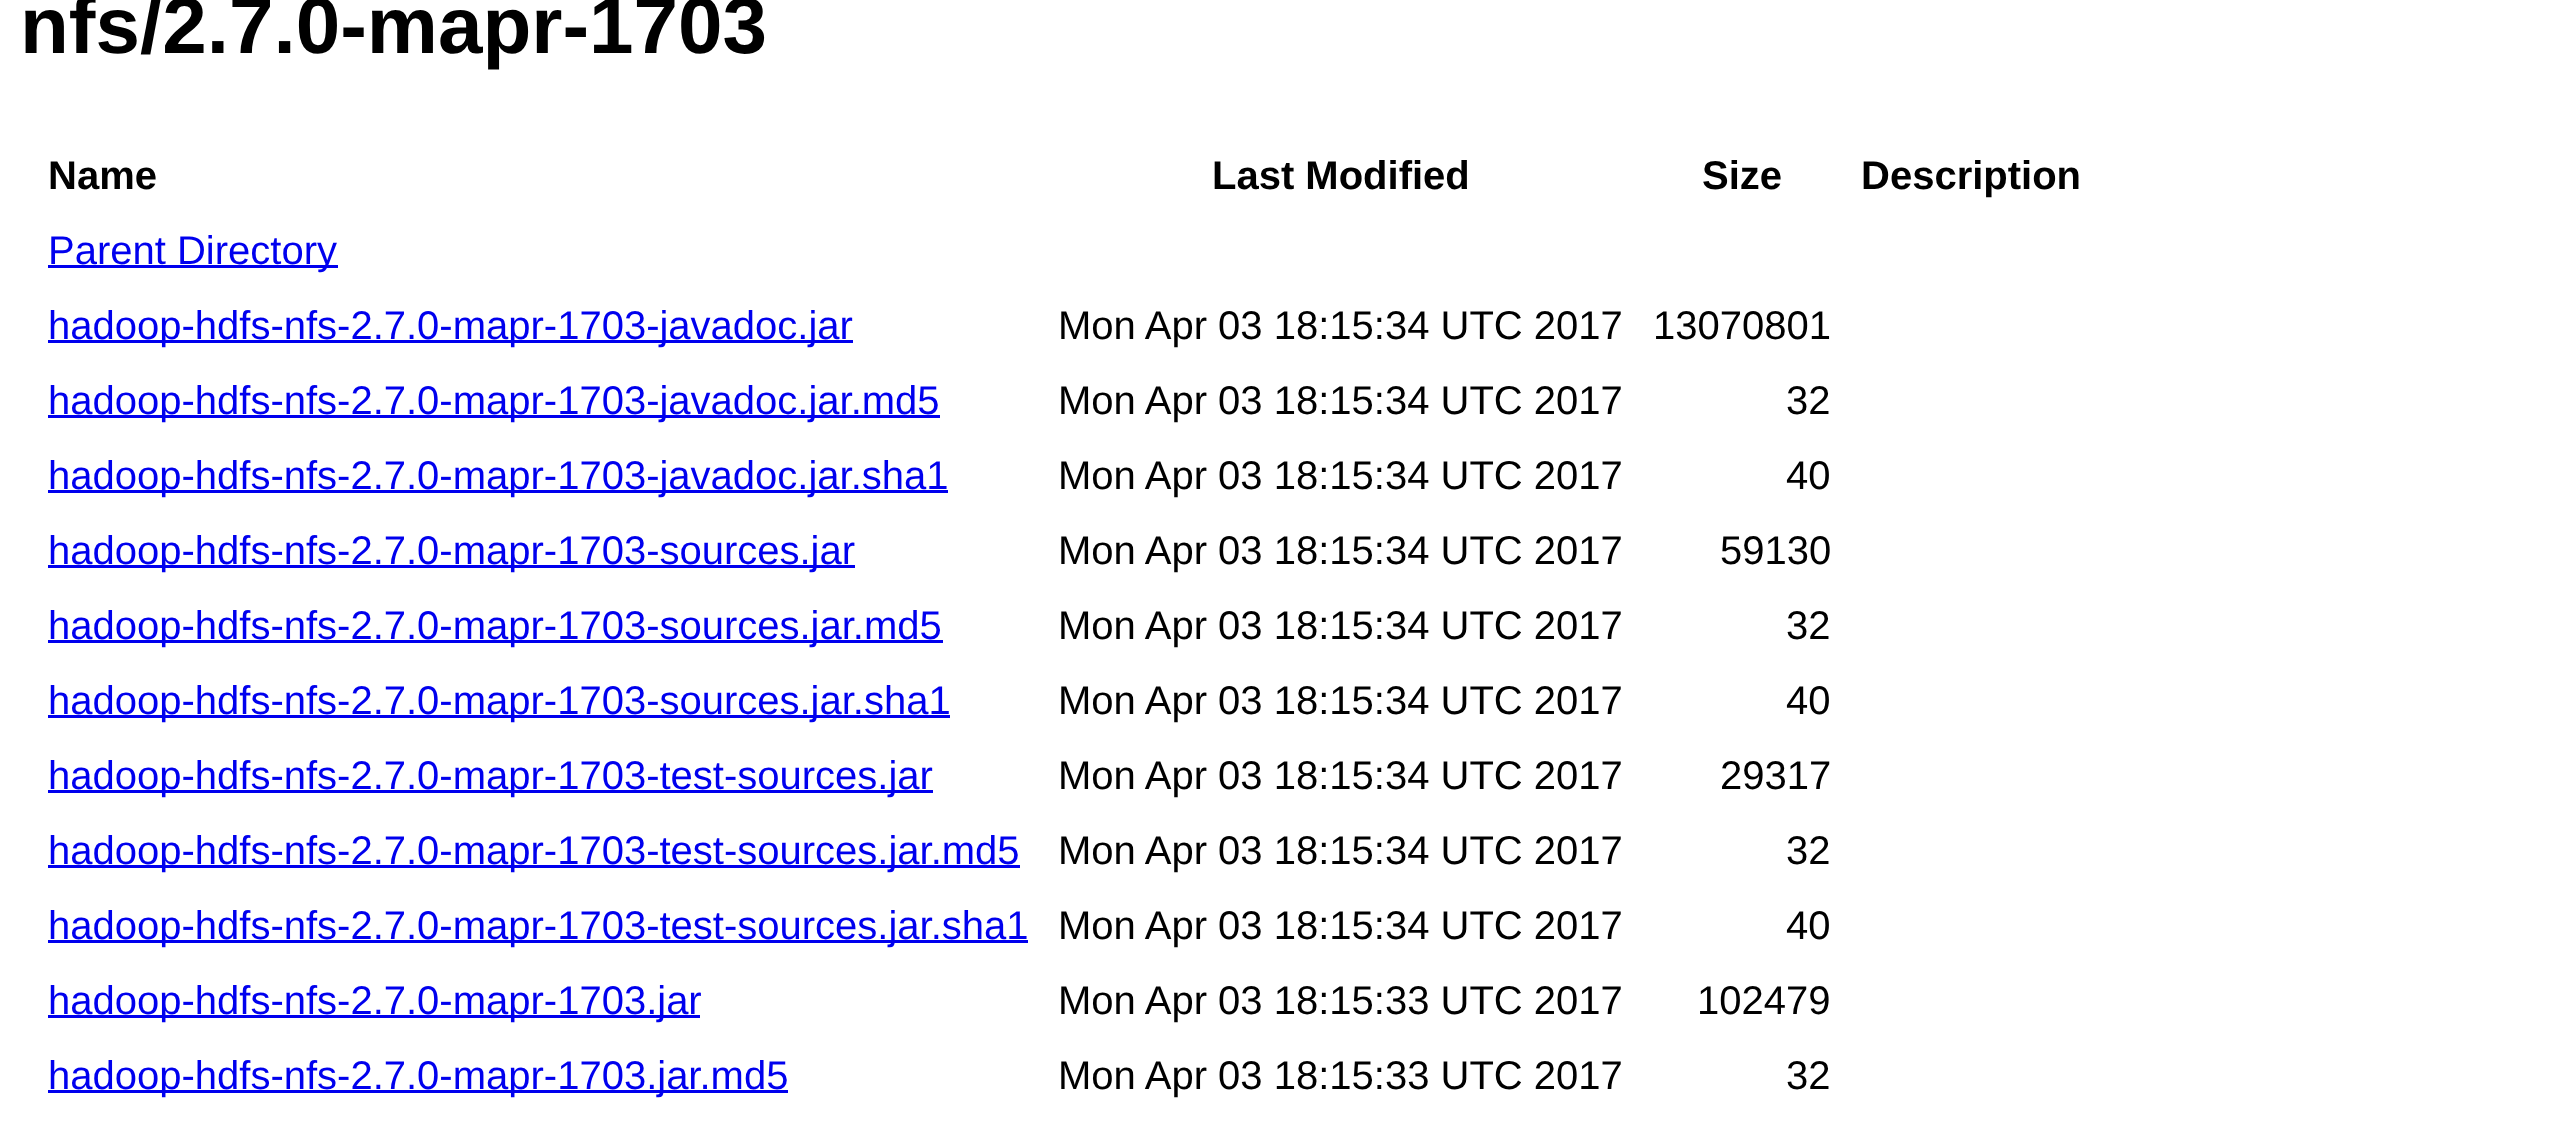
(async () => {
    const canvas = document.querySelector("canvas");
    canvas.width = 2554;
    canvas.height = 1126;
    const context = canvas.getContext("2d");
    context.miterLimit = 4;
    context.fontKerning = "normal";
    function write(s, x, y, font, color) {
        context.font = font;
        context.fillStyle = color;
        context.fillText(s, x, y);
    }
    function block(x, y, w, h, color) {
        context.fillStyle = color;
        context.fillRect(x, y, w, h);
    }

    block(0, 0, 2554, 1126, "rgb(255, 255, 255)");
    write("nfs/2.7.0-mapr-1703", 20, 53, "bold 80px Liberation Sans", "rgb(0, 0, 0)");
    write("Name", 48, 189, "bold 40px Liberation Sans", "rgb(0, 0, 0)");
    write("Last Modified", 1212, 189, "bold 40px Liberation Sans", "rgb(0, 0, 0)");
    write("Size", 1702, 189, "bold 40px Liberation Sans", "rgb(0, 0, 0)");
    write("Description", 1861, 189, "bold 40px Liberation Sans", "rgb(0, 0, 0)");
    block(48, 265, 290, 3, "rgb(0, 0, 238)");
    write("Parent Directory", 48, 264, "40px Liberation Sans", "rgb(0, 0, 238)");
    block(48, 340, 805, 3, "rgb(0, 0, 238)");
    write("hadoop-hdfs-nfs-2.7.0-mapr-1703-javadoc.jar", 48, 339, "40px Liberation Sans", "rgb(0, 0, 238)");
    write("Mon Apr 03 18:15:34 UTC 2017", 1058, 339, "40px Liberation Sans", "rgb(0, 0, 0)");
    write("13070801", 1653, 339, "40px Liberation Sans", "rgb(0, 0, 0)");
    block(48, 415, 892, 3, "rgb(0, 0, 238)");
    write("hadoop-hdfs-nfs-2.7.0-mapr-1703-javadoc.jar.md5", 48, 414, "40px Liberation Sans", "rgb(0, 0, 238)");
    write("Mon Apr 03 18:15:34 UTC 2017", 1058, 414, "40px Liberation Sans", "rgb(0, 0, 0)");
    write("32", 1786, 414, "40px Liberation Sans", "rgb(0, 0, 0)");
    block(48, 490, 900, 3, "rgb(0, 0, 238)");
    write("hadoop-hdfs-nfs-2.7.0-mapr-1703-javadoc.jar.sha1", 48, 489, "40px Liberation Sans", "rgb(0, 0, 238)");
    write("Mon Apr 03 18:15:34 UTC 2017", 1058, 489, "40px Liberation Sans", "rgb(0, 0, 0)");
    write("40", 1786, 489, "40px Liberation Sans", "rgb(0, 0, 0)");
    block(48, 565, 807, 3, "rgb(0, 0, 238)");
    write("hadoop-hdfs-nfs-2.7.0-mapr-1703-sources.jar", 48, 564, "40px Liberation Sans", "rgb(0, 0, 238)");
    write("Mon Apr 03 18:15:34 UTC 2017", 1058, 564, "40px Liberation Sans", "rgb(0, 0, 0)");
    write("59130", 1720, 564, "40px Liberation Sans", "rgb(0, 0, 0)");
    block(48, 640, 895, 3, "rgb(0, 0, 238)");
    write("hadoop-hdfs-nfs-2.7.0-mapr-1703-sources.jar.md5", 48, 639, "40px Liberation Sans", "rgb(0, 0, 238)");
    write("Mon Apr 03 18:15:34 UTC 2017", 1058, 639, "40px Liberation Sans", "rgb(0, 0, 0)");
    write("32", 1786, 639, "40px Liberation Sans", "rgb(0, 0, 0)");
    block(48, 715, 902, 3, "rgb(0, 0, 238)");
    write("hadoop-hdfs-nfs-2.7.0-mapr-1703-sources.jar.sha1", 48, 714, "40px Liberation Sans", "rgb(0, 0, 238)");
    write("Mon Apr 03 18:15:34 UTC 2017", 1058, 714, "40px Liberation Sans", "rgb(0, 0, 0)");
    write("40", 1786, 714, "40px Liberation Sans", "rgb(0, 0, 0)");
    block(48, 790, 885, 3, "rgb(0, 0, 238)");
    write("hadoop-hdfs-nfs-2.7.0-mapr-1703-test-sources.jar", 48, 789, "40px Liberation Sans", "rgb(0, 0, 238)");
    write("Mon Apr 03 18:15:34 UTC 2017", 1058, 789, "40px Liberation Sans", "rgb(0, 0, 0)");
    write("29317", 1720, 789, "40px Liberation Sans", "rgb(0, 0, 0)");
    block(48, 865, 972, 3, "rgb(0, 0, 238)");
    write("hadoop-hdfs-nfs-2.7.0-mapr-1703-test-sources.jar.md5", 48, 864, "40px Liberation Sans", "rgb(0, 0, 238)");
    write("Mon Apr 03 18:15:34 UTC 2017", 1058, 864, "40px Liberation Sans", "rgb(0, 0, 0)");
    write("32", 1786, 864, "40px Liberation Sans", "rgb(0, 0, 0)");
    block(48, 940, 980, 3, "rgb(0, 0, 238)");
    write("hadoop-hdfs-nfs-2.7.0-mapr-1703-test-sources.jar.sha1", 48, 939, "40px Liberation Sans", "rgb(0, 0, 238)");
    write("Mon Apr 03 18:15:34 UTC 2017", 1058, 939, "40px Liberation Sans", "rgb(0, 0, 0)");
    write("40", 1786, 939, "40px Liberation Sans", "rgb(0, 0, 0)");
    block(48, 1015, 652, 3, "rgb(0, 0, 238)");
    write("hadoop-hdfs-nfs-2.7.0-mapr-1703.jar", 48, 1014, "40px Liberation Sans", "rgb(0, 0, 238)");
    write("Mon Apr 03 18:15:33 UTC 2017", 1058, 1014, "40px Liberation Sans", "rgb(0, 0, 0)");
    write("102479", 1697, 1014, "40px Liberation Sans", "rgb(0, 0, 0)");
    block(48, 1090, 740, 3, "rgb(0, 0, 238)");
    write("hadoop-hdfs-nfs-2.7.0-mapr-1703.jar.md5", 48, 1089, "40px Liberation Sans", "rgb(0, 0, 238)");
    write("Mon Apr 03 18:15:33 UTC 2017", 1058, 1089, "40px Liberation Sans", "rgb(0, 0, 0)");
    write("32", 1786, 1089, "40px Liberation Sans", "rgb(0, 0, 0)");
})();
